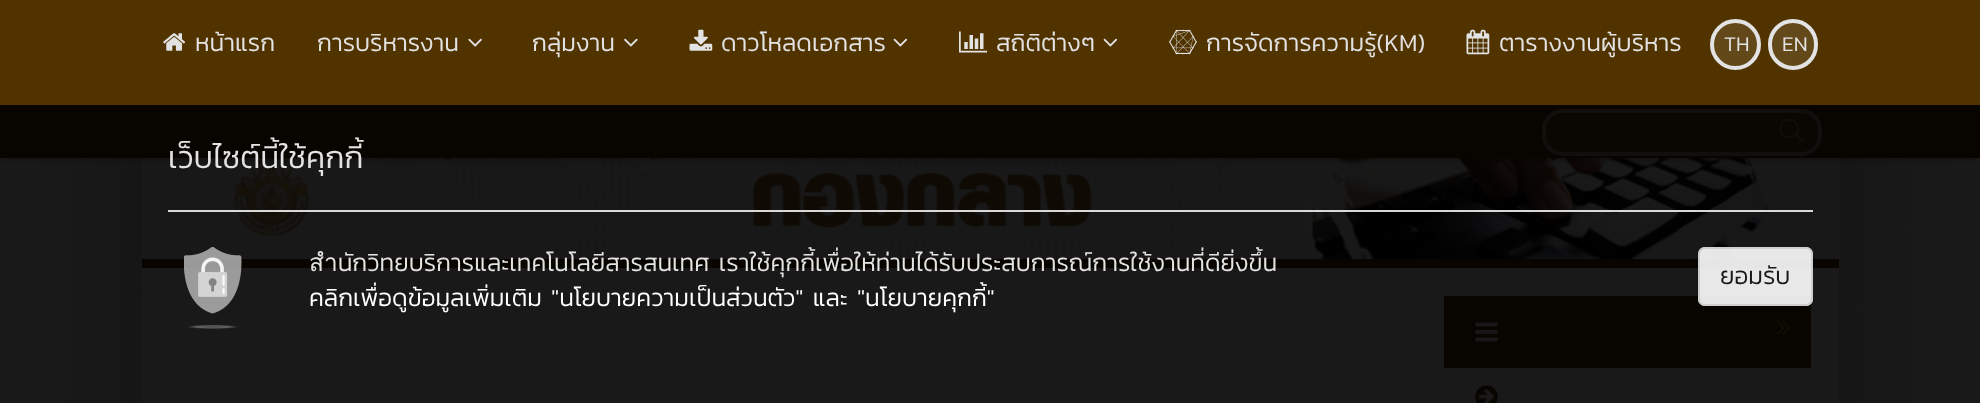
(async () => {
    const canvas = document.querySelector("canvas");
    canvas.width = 1980;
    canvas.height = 403;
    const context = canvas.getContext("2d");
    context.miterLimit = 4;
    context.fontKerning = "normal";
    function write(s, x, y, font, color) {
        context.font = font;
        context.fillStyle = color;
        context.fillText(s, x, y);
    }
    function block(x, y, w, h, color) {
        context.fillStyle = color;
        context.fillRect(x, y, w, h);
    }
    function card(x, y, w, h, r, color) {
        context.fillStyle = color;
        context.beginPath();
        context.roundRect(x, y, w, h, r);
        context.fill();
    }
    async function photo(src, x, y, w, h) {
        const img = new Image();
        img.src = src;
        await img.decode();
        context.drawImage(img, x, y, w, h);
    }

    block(0, 0, 1980, 403, "rgb(255, 255, 255)");
    await photo("media/1.png", 0, 158, 1980, 245);
    context.fillStyle = "rgba(0, 0, 0, 0.2)";
    context.filter = "blur(44px)";
    context.beginPath();
    context.rect(124, -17, 1733, 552);
    context.fill();
    context.filter = "none";
    await photo("media/12.png", 141, 158, 1699, 101);
    context.filter = "blur(2px)";
    context.beginPath();
    context.rect(4, 11, 1974, 150);
    context.fill();
    context.filter = "none";
    block(0, 0, 1980, 158, "rgb(81, 51, 0)");
    await photo("media/2.png", 163, 33, 23, 18);
    write("หน้าแรก", 195, 51, "300 24.5px Kanit", "rgb(227, 227, 227)");
    write("การบริหารงาน", 317, 51, "300 24.5px Kanit", "rgb(227, 227, 227)");
    await photo("media/3.png", 468, 38, 14, 9);
    write("กลุ่มงาน", 532, 51, "300 24.5px Kanit", "rgb(227, 227, 227)");
    await photo("media/4.png", 624, 38, 14, 9);
    await photo("media/5.png", 689, 29, 24, 22);
    write("ดาวโหลดเอกสาร", 721, 51, "300 24.5px Kanit", "rgb(227, 227, 227)");
    await photo("media/6.png", 893, 38, 15, 9);
    await photo("media/7.png", 959, 31, 28, 22);
    write("สถิติต่างๆ", 996, 51, "300 24.5px Kanit", "rgb(227, 227, 227)");
    await photo("media/6.png", 1103, 38, 15, 9);
    await photo("media/8.png", 1169, 29, 28, 26);
    write("การจัดการความรู้(KM)", 1206, 51, "300 24.5px Kanit", "rgb(227, 227, 227)");
    await photo("media/9.png", 1466, 29, 24, 26);
    write("ตารางงานผู้บริหาร", 1499, 51, "300 24.5px Kanit", "rgb(227, 227, 227)");
    context.fillStyle = "rgb(99, 72, 26)";
    context.beginPath();
    context.arc(1735.5, 44.5, 23.5, 0, Math.PI * 2);
    context.fill();
    context.strokeStyle = "rgb(227, 227, 227)";
    context.lineWidth = 4;
    context.stroke();
    write("TH", 1724, 51, "300 21px Kanit", "rgb(227, 227, 227)");
    context.fillStyle = "rgb(99, 72, 26)";
    context.beginPath();
    context.roundRect(1770, 21, 46, 47, 23);
    context.fill();
    context.stroke();
    write("EN", 1782, 51, "300 21px Kanit", "rgb(227, 227, 227)");
    context.fillStyle = "rgb(99, 72, 26)";
    context.beginPath();
    context.roundRect(1544, 111, 276, 43, 19);
    context.fill();
    context.strokeStyle = "rgb(168, 153, 128)";
    context.stroke();
    await photo("media/10.png", 1779, 118, 26, 26);
    block(142, 268, 1697, 135, "rgb(255, 255, 255)");
    block(142, 259, 1697, 9, "rgb(81, 51, 0)");
    block(1444, 296, 367, 72, "rgb(81, 51, 0)");
    await photo("media/13.png", 1475, 322, 23, 20);
    await photo("media/14.png", 1776, 320, 15, 15);
    block(1444, 368, 367, 35, "rgb(249, 249, 249)");
    await photo("media/15.png", 1475, 385, 23, 18);
    block(0, 105, 1980, 298, "rgba(0, 0, 0, 0.9)");
    write("เว็บไซต์นี้ใช้คุกกี้", 168, 168, "300 31.5px Kanit", "rgb(227, 227, 227)");
    block(168, 210, 1645, 2, "rgba(238, 238, 238, 0.9)");
    await photo("media/11.png", 184, 247, 58, 82);
    write("สำนักวิทยบริการและเทคโนโลยีสารสนเทศ เราใช้คุกกี้เพื่อให้ท่านได้รับประสบการณ์การใช้งานที่ดียิ่งขึ้น", 309, 271, "300 24.5px Kanit", "rgb(227, 227, 227)");
    write("คลิกเพื่อดูข้อมูลเพิ่มเติม \"นโยบายความเป็นส่วนตัว\" และ \"นโยบายคุกกี้\"", 309, 306, "300 24.5px Kanit", "rgb(255, 255, 255)");
    card(1698, 247, 115, 59, 7, "rgba(255, 255, 255, 0.9)");
    context.beginPath();
    context.roundRect(1699, 248, 113, 57, 6);
    context.strokeStyle = "rgba(204, 204, 204, 0.9)";
    context.lineWidth = 2;
    context.stroke();
    write("ยอมรับ", 1720, 284, "300 24.5px Kanit", "rgb(23, 23, 23)");
})();
